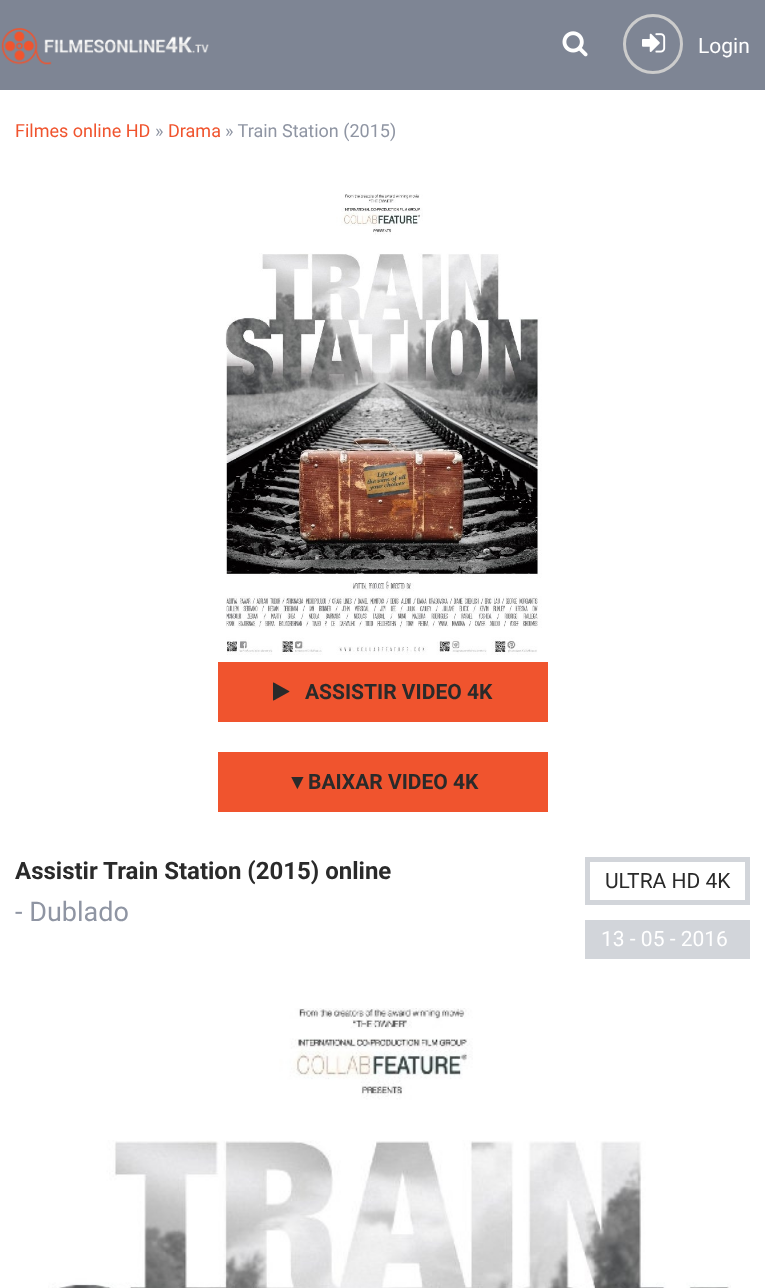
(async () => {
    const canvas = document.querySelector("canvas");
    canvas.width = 765;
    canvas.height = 1288;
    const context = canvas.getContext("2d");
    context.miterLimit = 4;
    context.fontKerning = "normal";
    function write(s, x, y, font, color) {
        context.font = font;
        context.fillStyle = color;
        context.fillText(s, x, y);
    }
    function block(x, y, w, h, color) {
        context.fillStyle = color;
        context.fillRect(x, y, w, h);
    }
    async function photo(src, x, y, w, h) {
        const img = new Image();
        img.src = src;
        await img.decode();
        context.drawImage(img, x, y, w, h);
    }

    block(0, 0, 765, 1288, "rgb(126, 133, 148)");
    await photo("media/1.png", 1, 28, 208, 37);
    await photo("media/2.png", 562, 31, 26, 26);
    context.beginPath();
    context.arc(653, 44, 28.5, 0, Math.PI * 2);
    context.strokeStyle = "rgb(204, 204, 204)";
    context.lineWidth = 3;
    context.stroke();
    await photo("media/3.png", 642, 33, 24, 20);
    write("Login", 698, 53, "21px Roboto", "rgb(255, 255, 255)");
    block(0, 90, 765, 1198, "rgb(255, 255, 255)");
    write("Filmes online HD", 15, 137, "18px Roboto", "rgb(240, 84, 46)");
    write("»", 155, 137, "18px Roboto", "rgb(143, 149, 163)");
    write("Drama", 168, 137, "18px Roboto", "rgb(240, 84, 46)");
    write("» Train Station (2015)", 225, 137, "18px Roboto", "rgb(143, 149, 163)");
    await photo("media/4.png", 225, 194, 317, 461);
    block(218, 662, 330, 60, "rgb(240, 84, 46)");
    await photo("media/5.png", 273, 682, 17, 19);
    write("ASSISTIR VIDEO 4K", 305, 699, "bold 21px Roboto", "rgb(42, 42, 42)");
    block(218, 752, 330, 60, "rgb(240, 84, 46)");
    write("▼", 287, 789, "bold 21px Liberation Sans", "rgb(42, 42, 42)");
    write("BAIXAR VIDEO 4K", 308, 789, "bold 21px Roboto", "rgb(42, 42, 42)");
    write("Assistir Train Station (2015) online", 15, 879, "bold 24px Roboto", "rgb(42, 42, 42)");
    context.strokeStyle = "rgb(210, 213, 218)";
    context.lineWidth = 5;
    context.strokeRect(587.5, 859.5, 160, 43);
    write("ULTRA HD 4K", 605, 888, "21px Roboto", "rgb(42, 42, 42)");
    block(585, 920, 165, 39, "rgb(210, 213, 218)");
    write("13 - 05 - 2016", 601, 946, "21px Roboto", "rgb(255, 255, 255)");
    write("- Dublado", 15, 921, "27px Roboto", "rgb(143, 149, 163)");
    await photo("media/6.png", 48, 1008, 683, 280);
})();
